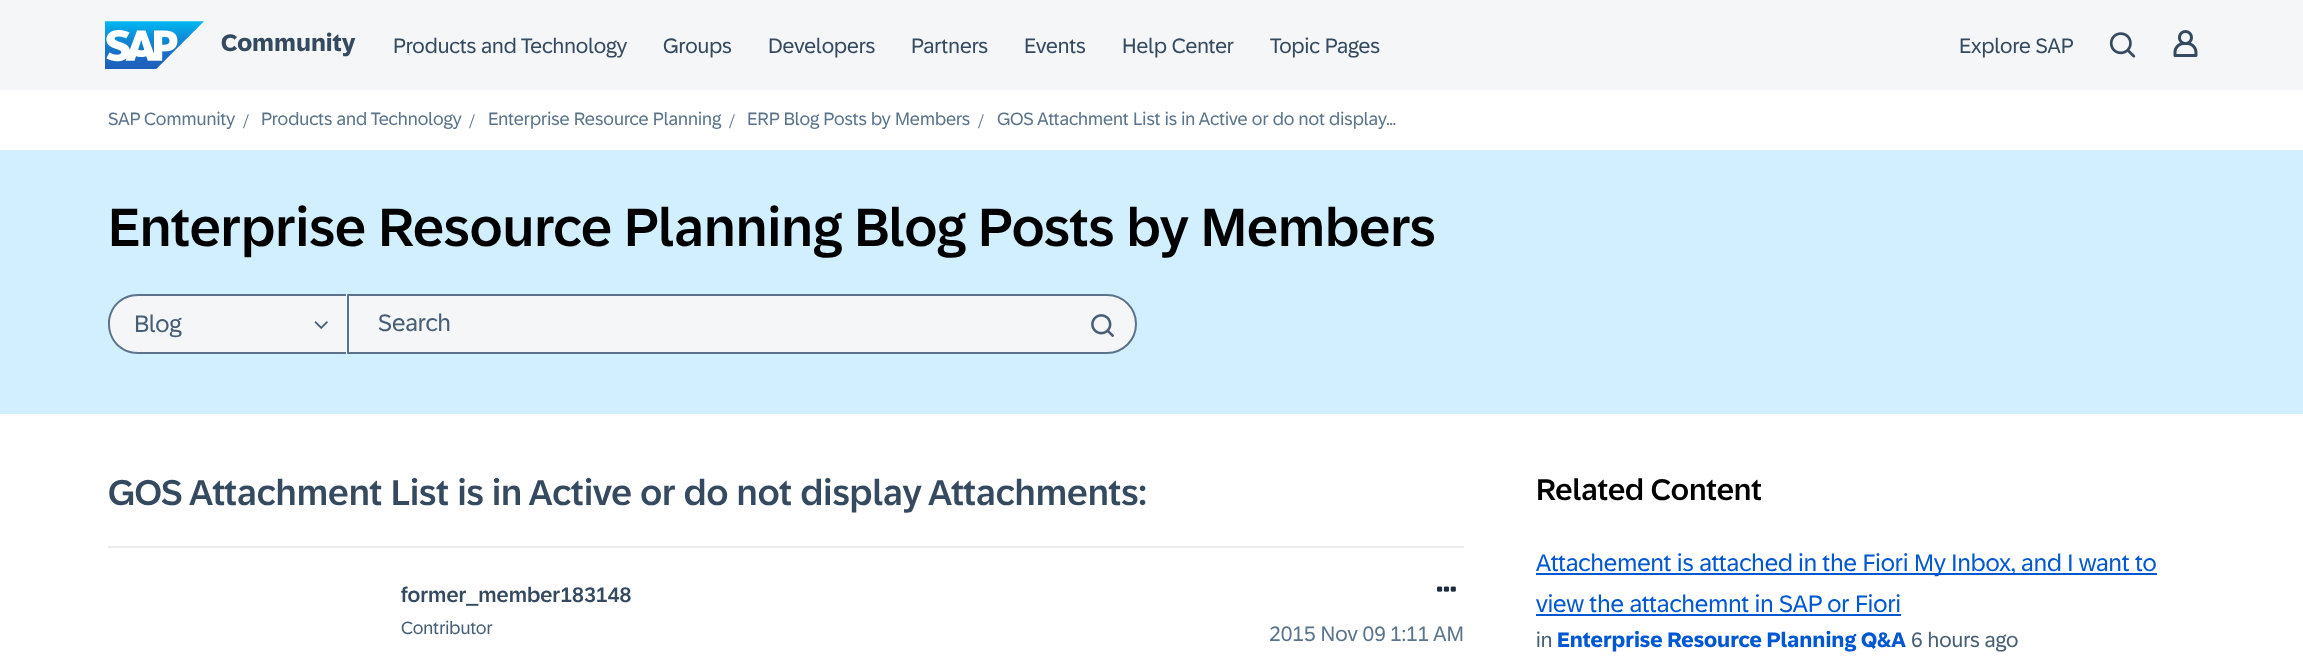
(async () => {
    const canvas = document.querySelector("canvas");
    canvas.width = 2303;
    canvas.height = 670;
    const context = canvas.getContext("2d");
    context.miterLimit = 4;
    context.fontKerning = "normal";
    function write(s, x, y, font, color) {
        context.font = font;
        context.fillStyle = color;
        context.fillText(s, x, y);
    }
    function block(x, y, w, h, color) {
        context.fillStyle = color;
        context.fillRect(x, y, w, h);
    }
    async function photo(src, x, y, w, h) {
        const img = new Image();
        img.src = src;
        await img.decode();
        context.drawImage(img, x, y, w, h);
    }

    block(0, 0, 2303, 670, "rgb(255, 255, 255)");
    block(0, 0, 2303, 90, "rgb(245, 246, 247)");
    await photo("media/1.png", 105, 21, 99, 48);
    write("Community", 221, 51, "bold 24px '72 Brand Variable'", "rgb(53, 74, 95)");
    write("Products and Technology", 393, 53, "21px '72 Brand Variable'", "rgb(53, 74, 95)");
    write("Groups", 663, 53, "21px '72 Brand Variable'", "rgb(53, 74, 95)");
    write("Developers", 768, 53, "21px '72 Brand Variable'", "rgb(53, 74, 95)");
    write("Partners", 911, 53, "21px '72 Brand Variable'", "rgb(53, 74, 95)");
    write("Events", 1024, 53, "21px '72 Brand Variable'", "rgb(53, 74, 95)");
    write("Help Center", 1122, 53, "21px '72 Brand Variable'", "rgb(53, 74, 95)");
    write("Topic Pages", 1270, 53, "21px '72 Brand Variable'", "rgb(53, 74, 95)");
    write("Explore SAP", 1959, 53, "21px '72 Brand Variable'", "rgb(53, 74, 95)");
    await photo("media/2.png", 2109, 32, 27, 26);
    await photo("media/3.png", 2173, 30, 25, 27);
    write("SAP Community", 108, 125, "18px '72 Brand Variable'", "rgb(91, 115, 139)");
    write("/", 243, 128, "21px Liberation Serif", "rgb(91, 115, 139)");
    write("Products and Technology", 261, 125, "18px '72 Brand Variable'", "rgb(91, 115, 139)");
    write("/", 469, 128, "21px Liberation Serif", "rgb(91, 115, 139)");
    write("Enterprise Resource Planning", 488, 125, "18px '72 Brand Variable'", "rgb(91, 115, 139)");
    write("/", 729, 128, "21px Liberation Serif", "rgb(91, 115, 139)");
    write("ERP Blog Posts by Members", 747, 125, "18px '72 Brand Variable'", "rgb(91, 115, 139)");
    write("/", 978, 128, "21px Liberation Serif", "rgb(91, 115, 139)");
    write("GOS Attachment List is in Active or do not display...", 997, 125, "18px '72 Brand Variable'", "rgb(91, 115, 139)");
    block(0, 150, 2303, 264, "rgb(209, 239, 255)");
    write("Enterprise Resource Planning Blog Posts by Members", 108, 246, "500 54px '72 Brand Variable'", "rgb(0, 0, 0)");
    context.fillStyle = "rgb(245, 246, 247)";
    context.beginPath();
    context.roundRect(108, 294, 239, 60, [30, 0, 0, 30]);
    context.fill();
    context.fillStyle = "rgb(91, 115, 139)";
    context.beginPath();
    context.moveTo(138, 294);
    context.lineTo(346, 294);
    context.lineTo(346, 354);
    context.lineTo(138, 354);
    context.bezierCurveTo(121, 354, 108, 341, 108, 324);
    context.bezierCurveTo(108, 307, 121, 294, 138, 294);
    context.closePath();
    context.moveTo(138, 296);
    context.lineTo(346, 296);
    context.lineTo(346, 352);
    context.lineTo(138, 352);
    context.bezierCurveTo(122, 352, 110, 340, 110, 324);
    context.bezierCurveTo(110, 308, 122, 296, 138, 296);
    context.closePath();
    context.fill("evenodd");
    write("Blog", 134, 332, "24px '72 Brand Variable'", "rgb(71, 94, 117)");
    await photo("media/4.png", 314, 321, 14, 8);
    context.fillStyle = "rgb(245, 246, 247)";
    context.beginPath();
    context.roundRect(348, 295, 788, 58, [0, 29, 29, 0]);
    context.fill();
    context.strokeStyle = "rgb(91, 115, 139)";
    context.lineWidth = 2;
    context.stroke();
    write("Search", 378, 331, "24px '72 Brand Variable'", "rgb(71, 94, 117)");
    await photo("media/5.png", 1091, 314, 23, 23);
    block(108, 546, 1356, 2, "rgb(234, 236, 238)");
    write("GOS Attachment List is in Active or do not display Attachments:", 108, 505, "500 36px '72 Brand Variable'", "rgb(53, 74, 95)");
    write("former_member183148", 401, 602, "500 21px '72 Brand Variable'", "rgb(53, 74, 95)");
    write("Contributor", 401, 634, "18px '72 Brand Variable'", "rgb(71, 94, 117)");
    await photo("media/6.png", 1437, 586, 19, 6);
    write("2015 Nov 09", 1269, 641, "21px '72 Brand Variable'", "rgb(91, 115, 139)");
    write("1:11 AM", 1390, 641, "21px '72 Brand Variable'", "rgb(91, 115, 139)");
    write("Related Content", 1536, 500, "500 30px '72 Brand Variable'", "rgb(0, 0, 0)");
    block(1536, 573, 621, 2, "rgb(0, 87, 210)");
    write("Attachement is attached in the Fiori My Inbox, and I want to", 1536, 571, "24px '72 Brand Variable'", "rgb(0, 87, 210)");
    write("view the attachemnt in SAP or Fiori", 1536, 612, "24px '72 Brand Variable'", "rgb(0, 87, 210)");
    block(1536, 614, 365, 2, "rgb(0, 87, 210)");
    write("in", 1536, 647, "21px '72 Brand Variable'", "rgb(71, 94, 117)");
    write("Enterprise Resource Planning Q&A", 1557, 647, "bold 21px '72 Brand Variable'", "rgb(0, 87, 210)");
    write("6 hours ago", 1911, 647, "21px '72 Brand Variable'", "rgb(71, 94, 117)");
})();
